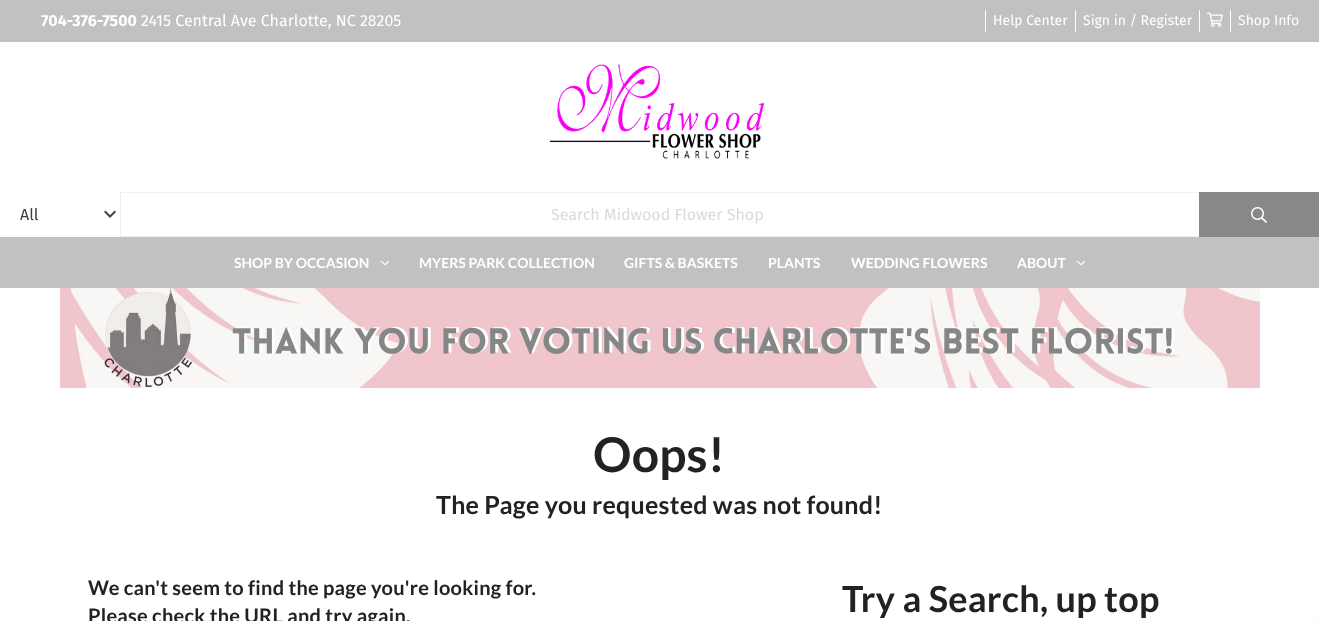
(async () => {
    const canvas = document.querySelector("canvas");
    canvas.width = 1319;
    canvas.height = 621;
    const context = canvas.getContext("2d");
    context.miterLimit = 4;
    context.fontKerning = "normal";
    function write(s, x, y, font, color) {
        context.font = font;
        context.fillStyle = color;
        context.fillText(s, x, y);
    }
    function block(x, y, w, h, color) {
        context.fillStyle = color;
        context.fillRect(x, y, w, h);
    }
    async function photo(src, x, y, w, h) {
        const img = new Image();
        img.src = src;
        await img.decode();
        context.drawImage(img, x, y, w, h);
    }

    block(0, 0, 1319, 621, "rgb(255, 255, 255)");
    block(0, 0, 1319, 42, "rgb(193, 193, 194)");
    write("704-376-7500", 41, 26, "bold 16px Fira Sans", "rgb(255, 255, 255)");
    write("2415 Central Ave Charlotte, NC 28205", 141, 26, "16px Fira Sans", "rgb(255, 255, 255)");
    block(985, 10, 1, 22, "rgb(255, 255, 255)");
    write("Help Center", 993, 25, "14px Fira Sans", "rgb(255, 255, 255)");
    block(1075, 10, 1, 22, "rgb(255, 255, 255)");
    write("Sign in / Register", 1083, 25, "14px Fira Sans", "rgb(255, 255, 255)");
    block(1199, 10, 1, 22, "rgb(255, 255, 255)");
    await photo("media/1.png", 1207, 12, 16, 15);
    block(1230, 10, 1, 22, "rgb(255, 255, 255)");
    write("Shop Info", 1238, 25, "14px Fira Sans", "rgb(255, 255, 255)");
    await photo("media/2.png", 549, 64, 216, 95);
    await photo("media/3.png", 104, 210, 12, 8);
    write("All", 20, 220, "16px Fira Sans", "rgb(64, 64, 64)");
    context.strokeStyle = "rgb(240, 240, 240)";
    context.strokeRect(120.5, 192.5, 1198, 44);
    write("Search Midwood Flower Shop", 551, 220, "16px Fira Sans", "rgb(218, 218, 218)");
    block(1199, 192, 120, 45, "rgb(136, 136, 137)");
    await photo("media/4.png", 1251, 207, 16, 16);
    block(0, 237, 1319, 51, "rgb(193, 193, 194)");
    write("SHOP BY OCCASION", 234, 268, "bold 14px Lato", "rgb(255, 255, 255)");
    await photo("media/5.png", 381, 260, 8, 6);
    write("MYERS PARK COLLECTION", 419, 268, "bold 14px Lato", "rgb(255, 255, 255)");
    write("GIFTS & BASKETS", 624, 268, "bold 14px Lato", "rgb(255, 255, 255)");
    write("PLANTS", 768, 268, "bold 14px Lato", "rgb(255, 255, 255)");
    write("WEDDING FLOWERS", 851, 268, "bold 14px Lato", "rgb(255, 255, 255)");
    write("ABOUT", 1017, 268, "bold 14px Lato", "rgb(255, 255, 255)");
    await photo("media/5.png", 1077, 260, 8, 6);
    await photo("media/6.png", 60, 288, 1200, 100);
    context.letterSpacing = "0.25px";
    write("Oops!", 593, 472, "bold 48px Lato", "rgb(34, 34, 34)");
    write("The Page you requested was not found!", 436, 514, "bold 25px Lato", "rgb(34, 34, 34)");
    write("We can't seem to find the page you're looking for.", 88, 595, "bold 20px Lato", "rgb(34, 34, 34)");
    write("Please check the URL and try again.", 88, 623, "bold 20px Lato", "rgb(34, 34, 34)");
    write("Try a Search, up top", 842, 612, "bold 36px Lato", "rgb(34, 34, 34)");
    block(1317, 619, 2, 2, "rgb(245, 245, 245)");
})();
